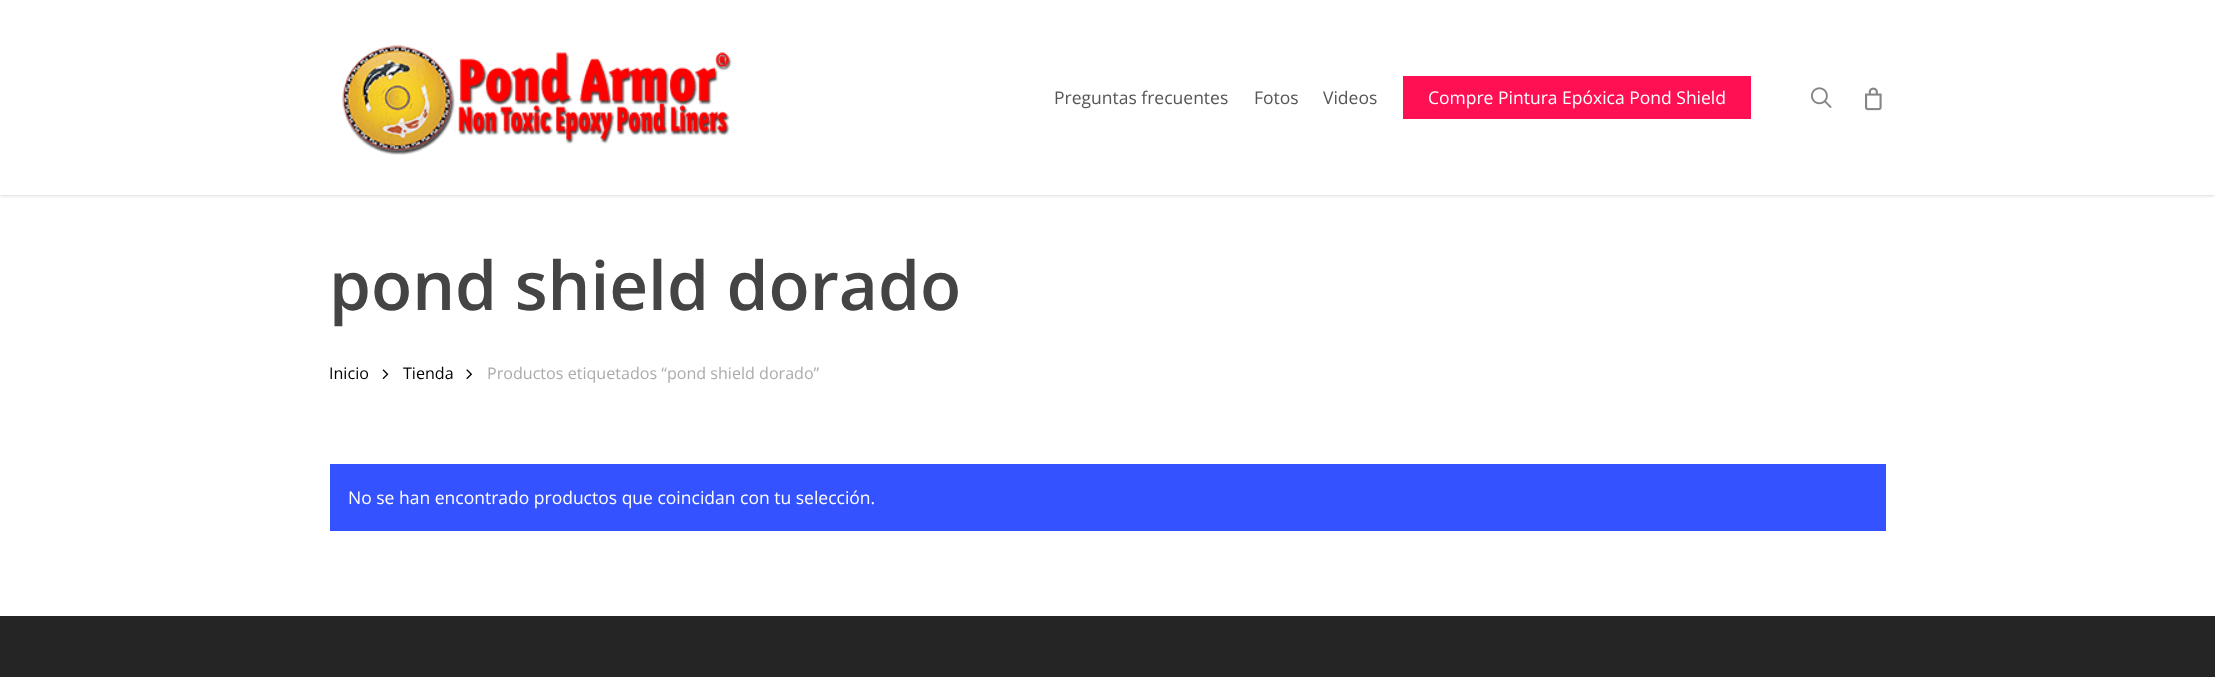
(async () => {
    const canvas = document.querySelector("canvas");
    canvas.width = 2215;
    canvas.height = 677;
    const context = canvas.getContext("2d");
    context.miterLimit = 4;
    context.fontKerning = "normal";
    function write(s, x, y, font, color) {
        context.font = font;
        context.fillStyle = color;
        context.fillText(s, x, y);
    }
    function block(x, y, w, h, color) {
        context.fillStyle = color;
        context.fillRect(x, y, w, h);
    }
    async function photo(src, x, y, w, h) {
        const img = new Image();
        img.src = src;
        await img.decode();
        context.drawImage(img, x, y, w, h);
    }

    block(0, 0, 2215, 677, "rgb(255, 255, 255)");
    context.save();
    context.beginPath();
    context.rect(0, 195, 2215, 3);
    context.clip();
    context.fillStyle = "rgba(0, 0, 0, 0.22)";
    context.filter = "blur(2px)";
    context.beginPath();
    context.rect(0, 0, 2215, 195);
    context.fill();
    context.filter = "none";
    context.restore();
    await photo("media/1.png", 342, 44, 390, 111);
    write("Preguntas frecuentes", 1054, 104, "17.5px Open Sans", "rgb(85, 85, 85)");
    write("Fotos", 1254, 104, "17.5px Open Sans", "rgb(85, 85, 85)");
    write("Videos", 1323, 104, "17.5px Open Sans", "rgb(85, 85, 85)");
    block(1403, 76, 348, 43, "rgb(255, 16, 83)");
    write("Compre Pintura Epóxica Pond Shield", 1428, 104, "17.5px Open Sans", "rgb(255, 255, 255)");
    await photo("media/2.png", 1811, 87, 21, 21);
    await photo("media/3.png", 1865, 87, 17, 24);
    write("pond shield dorado", 329, 310, "600 67.5px Open Sans", "rgb(68, 68, 68)");
    write("Inicio", 329, 379, "16.1px Open Sans", "rgb(0, 0, 0)");
    await photo("media/4.png", 382, 369, 7, 10);
    write("Tienda", 403, 379, "16.1px Open Sans", "rgb(0, 0, 0)");
    await photo("media/5.png", 466, 369, 6, 10);
    write("Productos etiquetados “pond shield dorado”", 487, 379, "16.1px Open Sans", "rgb(171, 171, 171)");
    block(330, 464, 1556, 67, "rgb(52, 82, 255)");
    write("No se han encontrado productos que coincidan con tu selección.", 348, 504, "17.5px Open Sans", "rgb(255, 255, 255)");
    block(0, 616, 2215, 61, "rgb(37, 37, 37)");
})();
